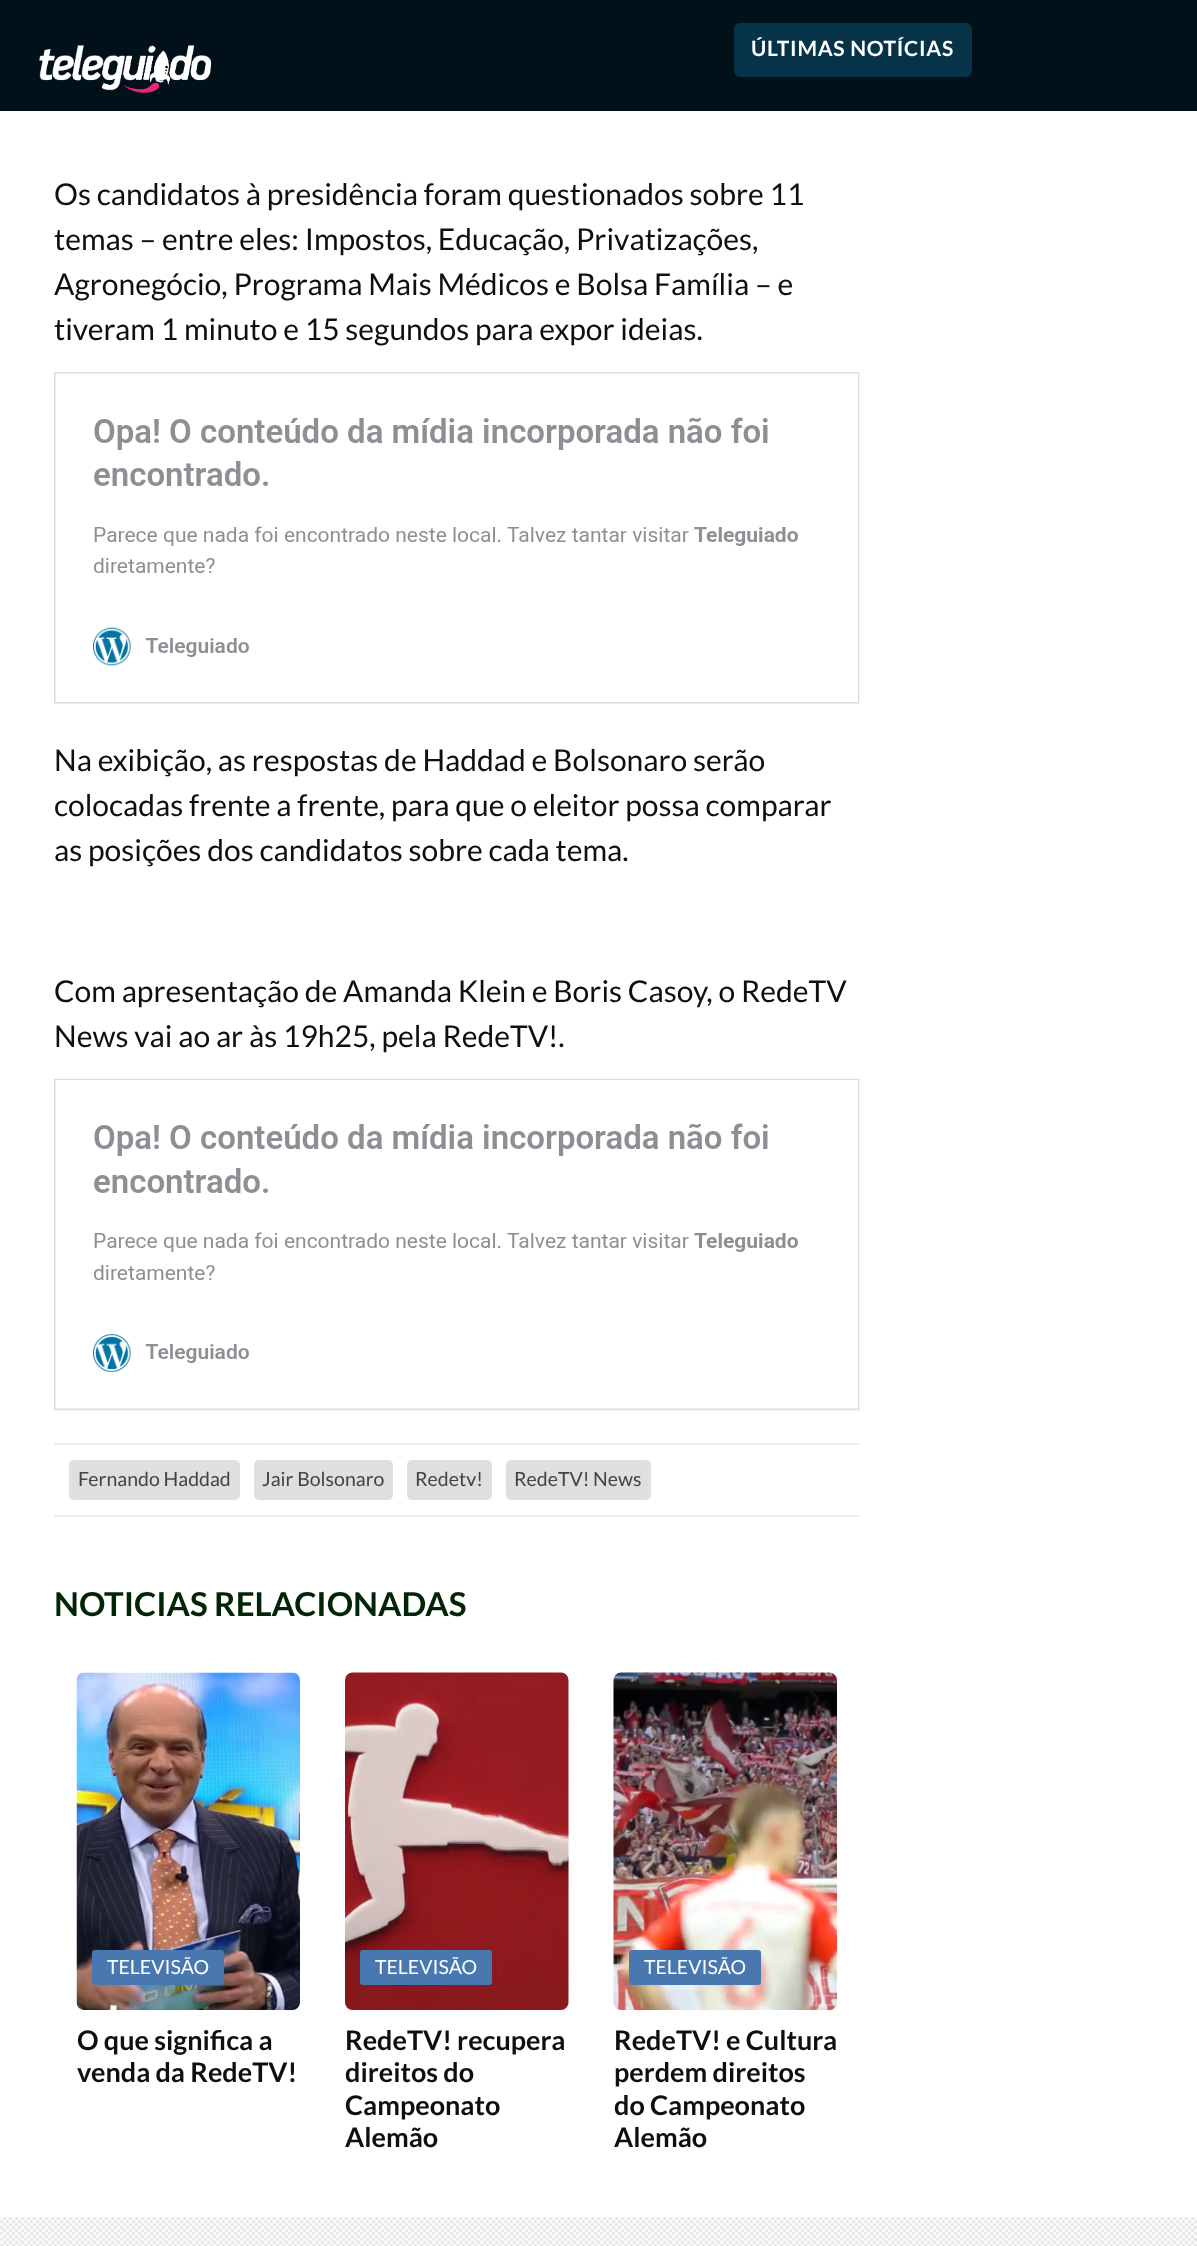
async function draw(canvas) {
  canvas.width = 1197
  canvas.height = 2246
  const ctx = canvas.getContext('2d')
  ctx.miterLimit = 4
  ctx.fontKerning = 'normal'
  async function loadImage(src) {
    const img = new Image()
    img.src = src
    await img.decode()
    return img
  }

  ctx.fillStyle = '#fff'
  ctx.fillRect(0, 0, 1197, 2246)
  ctx.fillStyle = '#00111a'
  ctx.fillRect(0, 0, 1197, 111)
  ctx.drawImage(await loadImage('image0.png'), 39, 45, 173, 48)
  ctx.fillStyle = '#073349'
  ctx.beginPath()
  ctx.roundRect(734, 23, 238, 54, 6)
  ctx.fill()
  ctx.letterSpacing = '0.75px'
  ctx.font = 'bold 21px Lato'
  ctx.fillStyle = '#fff'
  ctx.fillText('ÚLTIMAS NOTÍCIAS', 751, 56)
  ctx.letterSpacing = '0px'
  ctx.font = '30px Lato'
  ctx.fillStyle = '#0f0f0f'
  ctx.fillText('Os candidatos à presidência foram questionados sobre 11', 54, 205)
  ctx.fillText('temas – entre eles: Impostos, Educação, Privatizações,', 54, 250)
  ctx.fillText('Agronegócio, Programa Mais Médicos e Bolsa Família – e', 54, 295)
  ctx.fillText('tiveram 1 minuto e 15 segundos para expor ideias.', 54, 340)
  ctx.drawImage(await loadImage('image1.png'), 54, 372, 806, 332)
  ctx.fillText('Na exibição, as respostas de Haddad e Bolsonaro serão', 54, 771)
  ctx.fillText('colocadas frente a frente, para que o eleitor possa comparar', 54, 816)
  ctx.fillText('as posições dos candidatos sobre cada tema.', 54, 861)
  ctx.fillText('Com apresentação de Amanda Klein e Boris Casoy, o RedeTV', 54, 1002)
  ctx.fillText('News vai ao ar às 19h25, pela RedeTV!.', 54, 1047)
  ctx.drawImage(await loadImage('image2.png'), 54, 1078, 806, 333)
  ctx.fillStyle = '#efefef'
  ctx.fillRect(54, 1443, 806, 2)
  ctx.fillRect(54, 1515, 806, 2)
  ctx.fillStyle = '#dfdfdf'
  ctx.beginPath()
  ctx.roundRect(69, 1460, 171, 40, 5)
  ctx.fill()
  ctx.font = '19.5px Lato'
  ctx.fillStyle = '#434343'
  ctx.fillText('Fernando Haddad', 78, 1486)
  ctx.fillStyle = '#dfdfdf'
  ctx.beginPath()
  ctx.roundRect(254, 1460, 139, 40, 5)
  ctx.fill()
  ctx.fillStyle = '#434343'
  ctx.fillText('Jair Bolsonaro', 262, 1486)
  ctx.fillStyle = '#dfdfdf'
  ctx.beginPath()
  ctx.roundRect(407, 1460, 85, 40, 5)
  ctx.fill()
  ctx.fillStyle = '#434343'
  ctx.fillText('Redetv!', 415, 1486)
  ctx.fillStyle = '#dfdfdf'
  ctx.beginPath()
  ctx.roundRect(506, 1460, 145, 40, 5)
  ctx.fill()
  ctx.fillStyle = '#434343'
  ctx.fillText('RedeTV! News', 514, 1486)
  ctx.font = 'bold 33px Lato'
  ctx.fillStyle = '#002406'
  ctx.fillText('NOTICIAS RELACIONADAS', 54, 1616)
  ctx.drawImage(await loadImage('image3.png'), 76, 1672, 224, 338)
  ctx.fillStyle = '#4977af'
  ctx.beginPath()
  ctx.roundRect(92, 1950, 132, 35, 3)
  ctx.fill()
  ctx.font = '19.5px Lato'
  ctx.fillStyle = '#fff'
  ctx.fillText('TELEVISÃO', 107, 1974)
  ctx.font = 'bold 27px Lato'
  ctx.fillStyle = '#0f0f0f'
  ctx.fillText('O que significa a', 77, 2050)
  ctx.fillText('venda da RedeTV!', 77, 2082)
  ctx.drawImage(await loadImage('image4.png'), 345, 1672, 224, 338)
  ctx.fillStyle = '#4977af'
  ctx.beginPath()
  ctx.roundRect(360, 1950, 132, 35, 3)
  ctx.fill()
  ctx.font = '19.5px Lato'
  ctx.fillStyle = '#fff'
  ctx.fillText('TELEVISÃO', 375, 1974)
  ctx.font = 'bold 27px Lato'
  ctx.fillStyle = '#0f0f0f'
  ctx.fillText('RedeTV! recupera', 345, 2050)
  ctx.fillText('direitos do', 345, 2082)
  ctx.fillText('Campeonato', 345, 2115)
  ctx.fillText('Alemão', 345, 2147)
  ctx.drawImage(await loadImage('image5.png'), 613, 1672, 224, 338)
  ctx.fillStyle = '#4977af'
  ctx.beginPath()
  ctx.roundRect(629, 1950, 132, 35, 3)
  ctx.fill()
  ctx.font = '19.5px Lato'
  ctx.fillStyle = '#fff'
  ctx.fillText('TELEVISÃO', 644, 1974)
  ctx.font = 'bold 27px Lato'
  ctx.fillStyle = '#0f0f0f'
  ctx.fillText('RedeTV! e Cultura', 614, 2050)
  ctx.fillText('perdem direitos', 614, 2082)
  ctx.fillText('do Campeonato', 614, 2115)
  ctx.fillText('Alemão', 614, 2147)
  ctx.drawImage(await loadImage('image6.png'), 0, 2217, 1197, 29)
}

draw(document.querySelector('canvas'))
